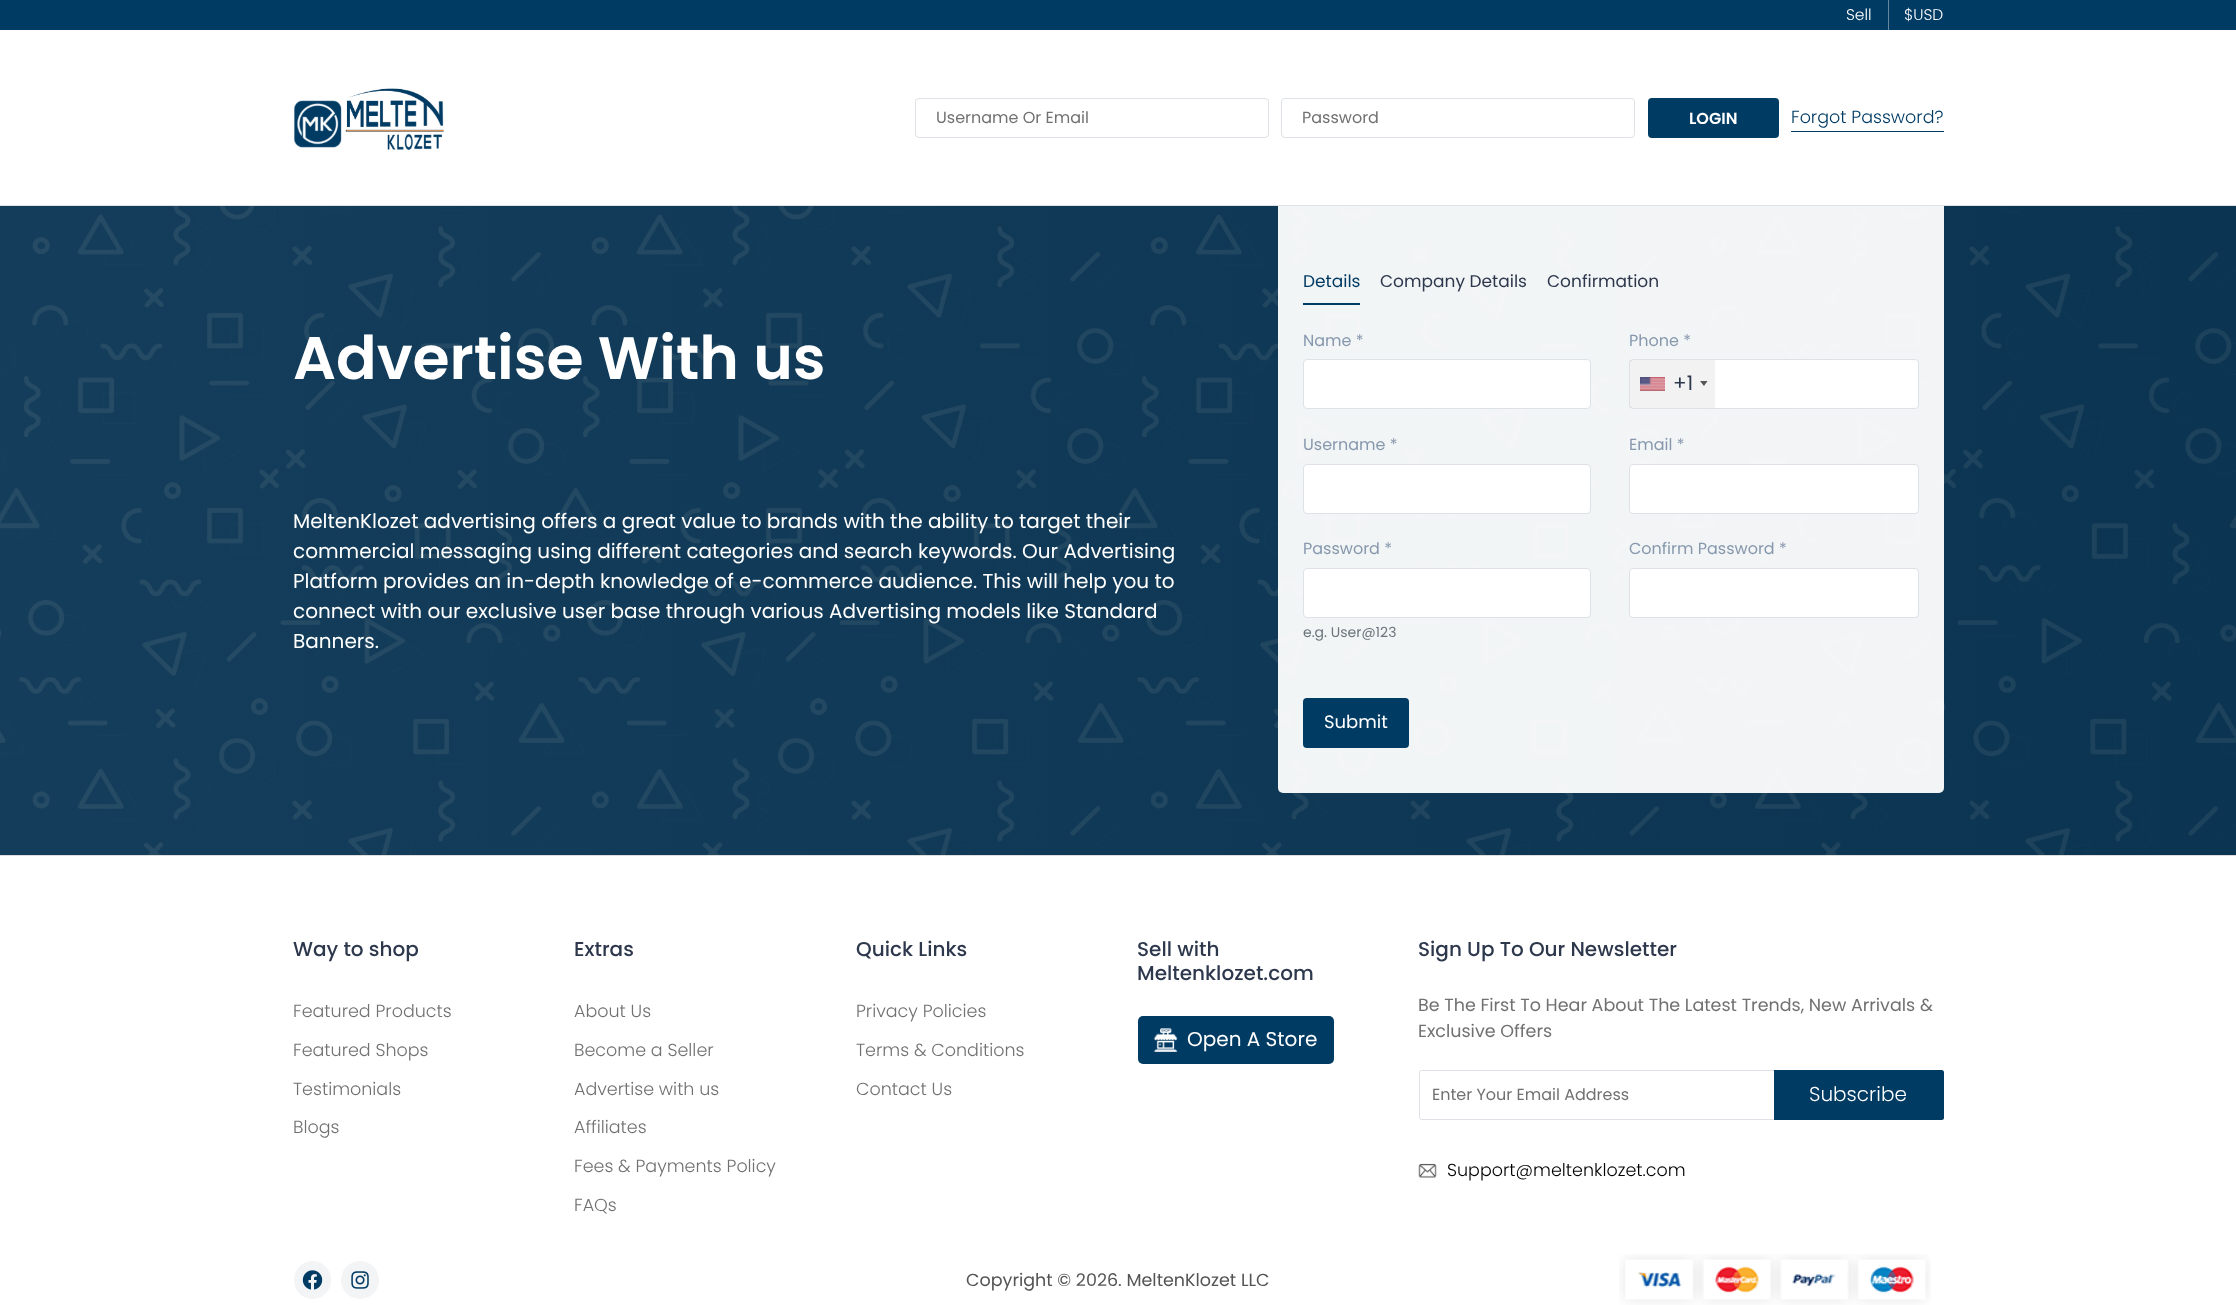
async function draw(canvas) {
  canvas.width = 2236
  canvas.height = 1305
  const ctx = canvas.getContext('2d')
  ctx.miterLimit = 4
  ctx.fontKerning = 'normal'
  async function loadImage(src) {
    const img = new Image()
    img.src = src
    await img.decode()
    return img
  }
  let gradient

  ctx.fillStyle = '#fff'
  ctx.fillRect(0, 0, 2236, 1305)
  ctx.fillStyle = '#003b64'
  ctx.fillRect(0, 206, 2236, 649)
  ctx.drawImage(await loadImage('image1.png'), 0, 206, 2236, 649)
  gradient = ctx.createLinearGradient(0, 474, 2236, 474)
  gradient.addColorStop(0, '#4143454d')
  gradient.addColorStop(1, '#2325264d')
  ctx.fillStyle = gradient
  ctx.fillRect(0, 206, 2236, 649)
  ctx.fillStyle = '#fffffff2'
  ctx.beginPath()
  ctx.roundRect(1278, 156, 666, 637, 5)
  ctx.fill()
  ctx.fillStyle = '#dee2e6'
  ctx.fillRect(0, 205, 2236, 1)
  ctx.fillStyle = '#003b64'
  ctx.fillRect(0, 0, 2236, 30)
  ctx.font = '300 15.5px Poppins'
  ctx.fillStyle = '#fff'
  ctx.fillText('Sell', 1846, 20)
  ctx.fillStyle = '#6689a2'
  ctx.fillRect(1888, 0, 1, 30)
  ctx.fillStyle = '#fff'
  ctx.fillText('$USD', 1904, 20)
  ctx.drawImage(await loadImage('image0.png'), 293, 88, 151, 62)
  ctx.beginPath()
  ctx.roundRect(915.5, 98.5, 353, 39, 3.5)
  ctx.strokeStyle = '#dee2e6'
  ctx.stroke()
  ctx.font = '16px Poppins'
  ctx.fillStyle = '#717171'
  ctx.fillText('Username Or Email', 936, 123)
  ctx.beginPath()
  ctx.roundRect(1281.5, 98.5, 353, 39, 3.5)
  ctx.stroke()
  ctx.fillText('Password', 1302, 123)
  ctx.fillStyle = '#003b64'
  ctx.beginPath()
  ctx.roundRect(1648, 98, 131, 40, 4)
  ctx.fill()
  ctx.font = '600 16px Poppins'
  ctx.fillStyle = '#fff'
  ctx.fillText('LOGIN', 1689, 124)
  ctx.font = '300 17.5px Poppins'
  ctx.fillStyle = '#003b64'
  ctx.fillText('Forgot Password?', 1791, 123)
  ctx.fillRect(1791, 131, 153, 1)
  ctx.font = '600 60px Poppins'
  ctx.fillStyle = '#fff'
  ctx.fillText('Advertise With us', 293, 379)
  ctx.font = '20px Poppins'
  ctx.fillText('MeltenKlozet advertising offers a great value to brands with the ability to target their', 293, 528)
  ctx.fillText('commercial messaging using different categories and search keywords. Our Advertising', 293, 558)
  ctx.fillText('Platform provides an in-depth knowledge of e-commerce audience. This will help you to', 293, 588)
  ctx.fillText('connect with our exclusive user base through various Advertising models like Standard', 293, 618)
  ctx.fillText('Banners.', 293, 648)
  ctx.font = '17px Poppins'
  ctx.fillStyle = '#003b64'
  ctx.fillText('Details', 1303, 287)
  ctx.fillRect(1303, 303, 57, 2)
  ctx.fillStyle = '#2e384d'
  ctx.fillText('Company Details', 1380, 287)
  ctx.fillText('Confirmation', 1547, 287)
  ctx.font = '16px Poppins'
  ctx.fillStyle = '#8798ad'
  ctx.fillText('Name *', 1303, 346)
  ctx.fillStyle = '#fff'
  ctx.beginPath()
  ctx.roundRect(1303.5, 359.5, 287, 49, 3.5)
  ctx.fill()
  ctx.stroke()
  ctx.fillStyle = '#8798ad'
  ctx.fillText('Phone *', 1629, 346)
  ctx.fillStyle = '#fff'
  ctx.beginPath()
  ctx.roundRect(1629.5, 359.5, 289, 49, 3.5)
  ctx.fill()
  ctx.stroke()
  ctx.fillStyle = '#0000000d'
  ctx.fillRect(1630, 360, 85, 48)
  ctx.fillStyle = '#888'
  ctx.filter = 'blur(0.5px)'
  ctx.beginPath()
  ctx.rect(1640, 378, 25, 13)
  ctx.fill()
  ctx.filter = 'none'
  ctx.drawImage(await loadImage('image2.png'), 1640, 377, 25, 14)
  ctx.font = '20px Poppins'
  ctx.fillStyle = '#2e384d'
  ctx.fillText('+1', 1673, 390)
  ctx.fillStyle = '#555'
  ctx.beginPath()
  ctx.moveTo(1700, 381)
  ctx.lineTo(1707.5, 381)
  ctx.lineTo(1704, 386)
  ctx.closePath()
  ctx.fill()
  ctx.font = '16px Poppins'
  ctx.fillStyle = '#8798ad'
  ctx.fillText('Username *', 1303, 450)
  ctx.fillStyle = '#fff'
  ctx.beginPath()
  ctx.roundRect(1303.5, 464.5, 287, 49, 3.5)
  ctx.fill()
  ctx.stroke()
  ctx.fillStyle = '#8798ad'
  ctx.fillText('Email *', 1629, 450)
  ctx.fillStyle = '#fff'
  ctx.beginPath()
  ctx.roundRect(1629.5, 464.5, 289, 49, 3.5)
  ctx.fill()
  ctx.stroke()
  ctx.fillStyle = '#8798ad'
  ctx.fillText('Password *', 1303, 554)
  ctx.fillStyle = '#fff'
  ctx.beginPath()
  ctx.roundRect(1303.5, 568.5, 287, 49, 3.5)
  ctx.fill()
  ctx.stroke()
  ctx.font = '14px Poppins'
  ctx.fillStyle = '#6c757d'
  ctx.fillText('e.g. User@123', 1303, 637)
  ctx.font = '16px Poppins'
  ctx.fillStyle = '#8798ad'
  ctx.fillText('Confirm Password *', 1629, 554)
  ctx.fillStyle = '#fff'
  ctx.beginPath()
  ctx.roundRect(1629.5, 568.5, 289, 49, 3.5)
  ctx.fill()
  ctx.stroke()
  ctx.fillStyle = '#003b64'
  ctx.beginPath()
  ctx.roundRect(1303, 698, 106, 50, 4)
  ctx.fill()
  ctx.font = '18px Poppins'
  ctx.fillStyle = '#fff'
  ctx.fillText('Submit', 1324, 728)
  ctx.fillStyle = '#ddd'
  ctx.fillRect(0, 855, 2236, 1)
  ctx.font = '500 20px Poppins'
  ctx.fillStyle = '#2e384d'
  ctx.fillText('Way to shop', 293, 956)
  ctx.font = '300 17.5px Poppins'
  ctx.fillStyle = '#717171'
  ctx.fillText('Featured Products', 293, 1017)
  ctx.fillText('Featured Shops', 293, 1056)
  ctx.fillText('Testimonials', 293, 1095)
  ctx.fillText('Blogs', 293, 1133)
  ctx.font = '500 20px Poppins'
  ctx.fillStyle = '#2e384d'
  ctx.fillText('Extras', 574, 956)
  ctx.font = '300 17.5px Poppins'
  ctx.fillStyle = '#717171'
  ctx.fillText('About Us', 574, 1017)
  ctx.fillText('Become a Seller', 574, 1056)
  ctx.fillText('Advertise with us', 574, 1095)
  ctx.fillText('Affiliates', 574, 1133)
  ctx.fillText('Fees & Payments Policy', 574, 1172)
  ctx.fillText('FAQs', 574, 1211)
  ctx.font = '500 20px Poppins'
  ctx.fillStyle = '#2e384d'
  ctx.fillText('Quick Links', 856, 956)
  ctx.font = '300 17.5px Poppins'
  ctx.fillStyle = '#717171'
  ctx.fillText('Privacy Policies', 856, 1017)
  ctx.fillText('Terms & Conditions', 856, 1056)
  ctx.fillText('Contact Us', 856, 1095)
  ctx.font = '500 20px Poppins'
  ctx.fillStyle = '#2e384d'
  ctx.fillText('Sell with', 1137, 956)
  ctx.fillText('Meltenklozet.com', 1137, 980)
  ctx.fillStyle = '#003b64'
  ctx.beginPath()
  ctx.roundRect(1138, 1016, 196, 48, 5)
  ctx.fill()
  ctx.drawImage(await loadImage('image3.png'), 1153, 1028, 25, 24)
  ctx.font = '20px Poppins'
  ctx.fillStyle = '#fff'
  ctx.fillText('Open A Store', 1187, 1046)
  ctx.font = '500 20px Poppins'
  ctx.fillStyle = '#2e384d'
  ctx.fillText('Sign Up To Our Newsletter', 1418, 956)
  ctx.font = '17.5px Poppins'
  ctx.fillStyle = '#717171'
  ctx.fillText('Be The First To Hear About The Latest Trends, New Arrivals &', 1418, 1011)
  ctx.fillText('Exclusive Offers', 1418, 1037)
  ctx.beginPath()
  ctx.roundRect(1419.5, 1070.5, 358, 49, [2, 0, 2, 2])
  ctx.stroke()
  ctx.font = '16px Poppins'
  ctx.fillText('Enter Your Email Address', 1432, 1100)
  ctx.fillStyle = '#003b64'
  ctx.beginPath()
  ctx.roundRect(1774, 1070, 170, 50, [0, 2.5, 2.5, 0])
  ctx.fill()
  ctx.font = '300 20px Poppins'
  ctx.fillStyle = '#fff'
  ctx.fillText('Subscribe', 1809, 1101)
  ctx.drawImage(await loadImage('image4.png'), 1418, 1163, 19, 15)
  ctx.font = '300 17.5px Poppins'
  ctx.fillStyle = '#000'
  ctx.fillText('Support@meltenklozet.com', 1447, 1176)
  ctx.fillStyle = '#f3f4f5'
  ctx.beginPath()
  ctx.roundRect(294, 1261, 37, 38, 18.5)
  ctx.fill()
  ctx.drawImage(await loadImage('image5.png'), 302, 1270, 21, 20)
  ctx.beginPath()
  ctx.arc(360, 1280, 19, 0, 2 * Math.PI)
  ctx.fill()
  ctx.drawImage(await loadImage('image6.png'), 351, 1271, 18, 18)
  ctx.font = '17.5px Poppins'
  ctx.fillStyle = '#545454'
  ctx.fillText('Copyright © 2026. MeltenKlozet LLC', 966, 1286)
  ctx.drawImage(await loadImage('image7.png'), 1619, 1254, 312, 51)
}

draw(document.querySelector('canvas'))
